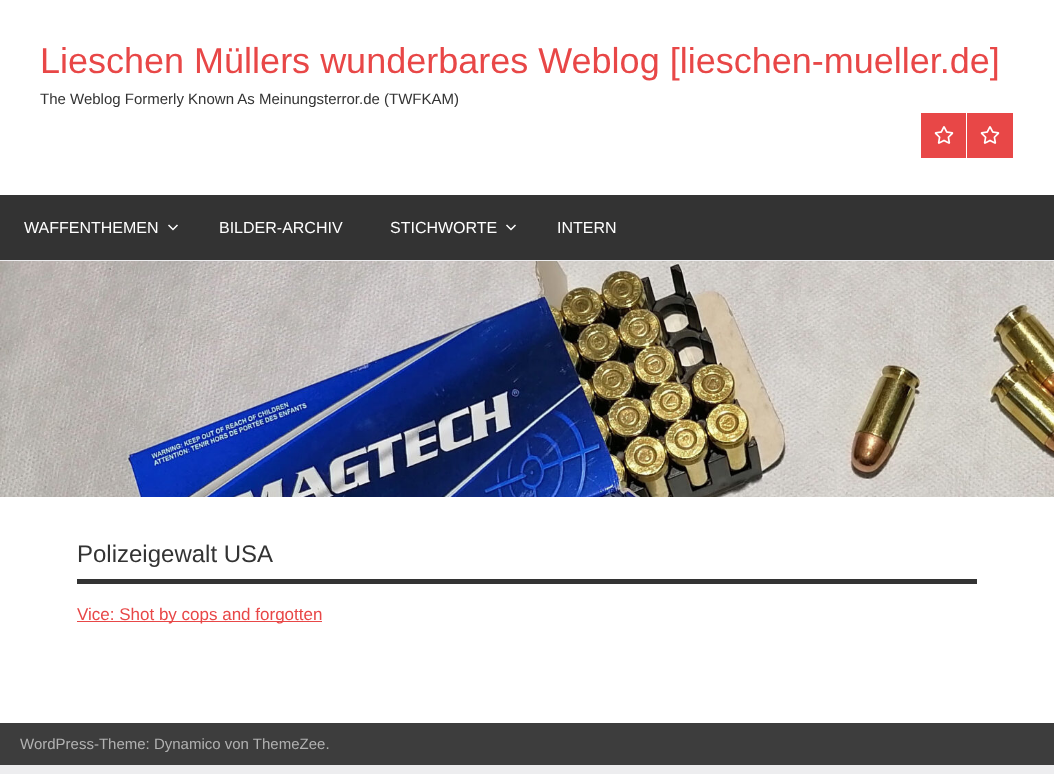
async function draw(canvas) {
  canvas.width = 1054
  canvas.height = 774
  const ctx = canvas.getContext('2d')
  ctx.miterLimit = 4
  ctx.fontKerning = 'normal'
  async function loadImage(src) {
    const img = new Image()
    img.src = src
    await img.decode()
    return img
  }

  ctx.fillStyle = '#ededef'
  ctx.fillRect(0, 0, 1054, 774)
  ctx.fillStyle = '#fff'
  ctx.fillRect(0, 0, 1054, 195)
  ctx.font = '36px Liberation Sans'
  ctx.fillStyle = '#e84747'
  ctx.fillText('Lieschen Müllers wunderbares Weblog [lieschen-mueller.de]', 40, 73)
  ctx.font = '15px Liberation Sans'
  ctx.fillStyle = '#333'
  ctx.fillText('The Weblog Formerly Known As Meinungsterror.de (TWFKAM)', 40, 104)
  ctx.fillStyle = '#e84747'
  ctx.fillRect(921, 113, 45, 45)
  ctx.drawImage(await loadImage('image0.png'), 934, 126, 20, 18)
  ctx.fillRect(967, 113, 46, 45)
  ctx.drawImage(await loadImage('image0.png'), 980, 126, 20, 18)
  ctx.fillStyle = '#333'
  ctx.fillRect(0, 195, 1054, 65)
  ctx.font = '16px Liberation Sans'
  ctx.fillStyle = '#fff'
  ctx.fillText('WAFFENTHEMEN', 24, 233)
  ctx.drawImage(await loadImage('image1.png'), 168, 224, 10, 7)
  ctx.fillText('BILDER-ARCHIV', 219, 233)
  ctx.fillText('STICHWORTE', 390, 233)
  ctx.drawImage(await loadImage('image2.png'), 506, 224, 10, 7)
  ctx.fillText('INTERN', 557, 233)
  ctx.drawImage(await loadImage('image3.png'), 0, 261, 1054, 236)
  ctx.fillRect(0, 497, 1054, 226)
  ctx.fillStyle = '#333'
  ctx.fillRect(77, 579, 900, 5)
  ctx.font = '24px Liberation Sans'
  ctx.fillText('Polizeigewalt USA', 77, 562)
  ctx.fillStyle = '#e84747'
  ctx.fillRect(77, 621, 245, 1)
  ctx.font = '17px Liberation Sans'
  ctx.fillText('Vice: Shot by cops and forgotten', 77, 620)
  ctx.fillStyle = '#3d3d3d'
  ctx.fillRect(0, 723, 1054, 42)
  ctx.font = '15px Liberation Sans'
  ctx.fillStyle = '#b1b1b1'
  ctx.fillText('WordPress-Theme: Dynamico von ThemeZee.', 20, 749)
}

draw(document.querySelector('canvas'))
